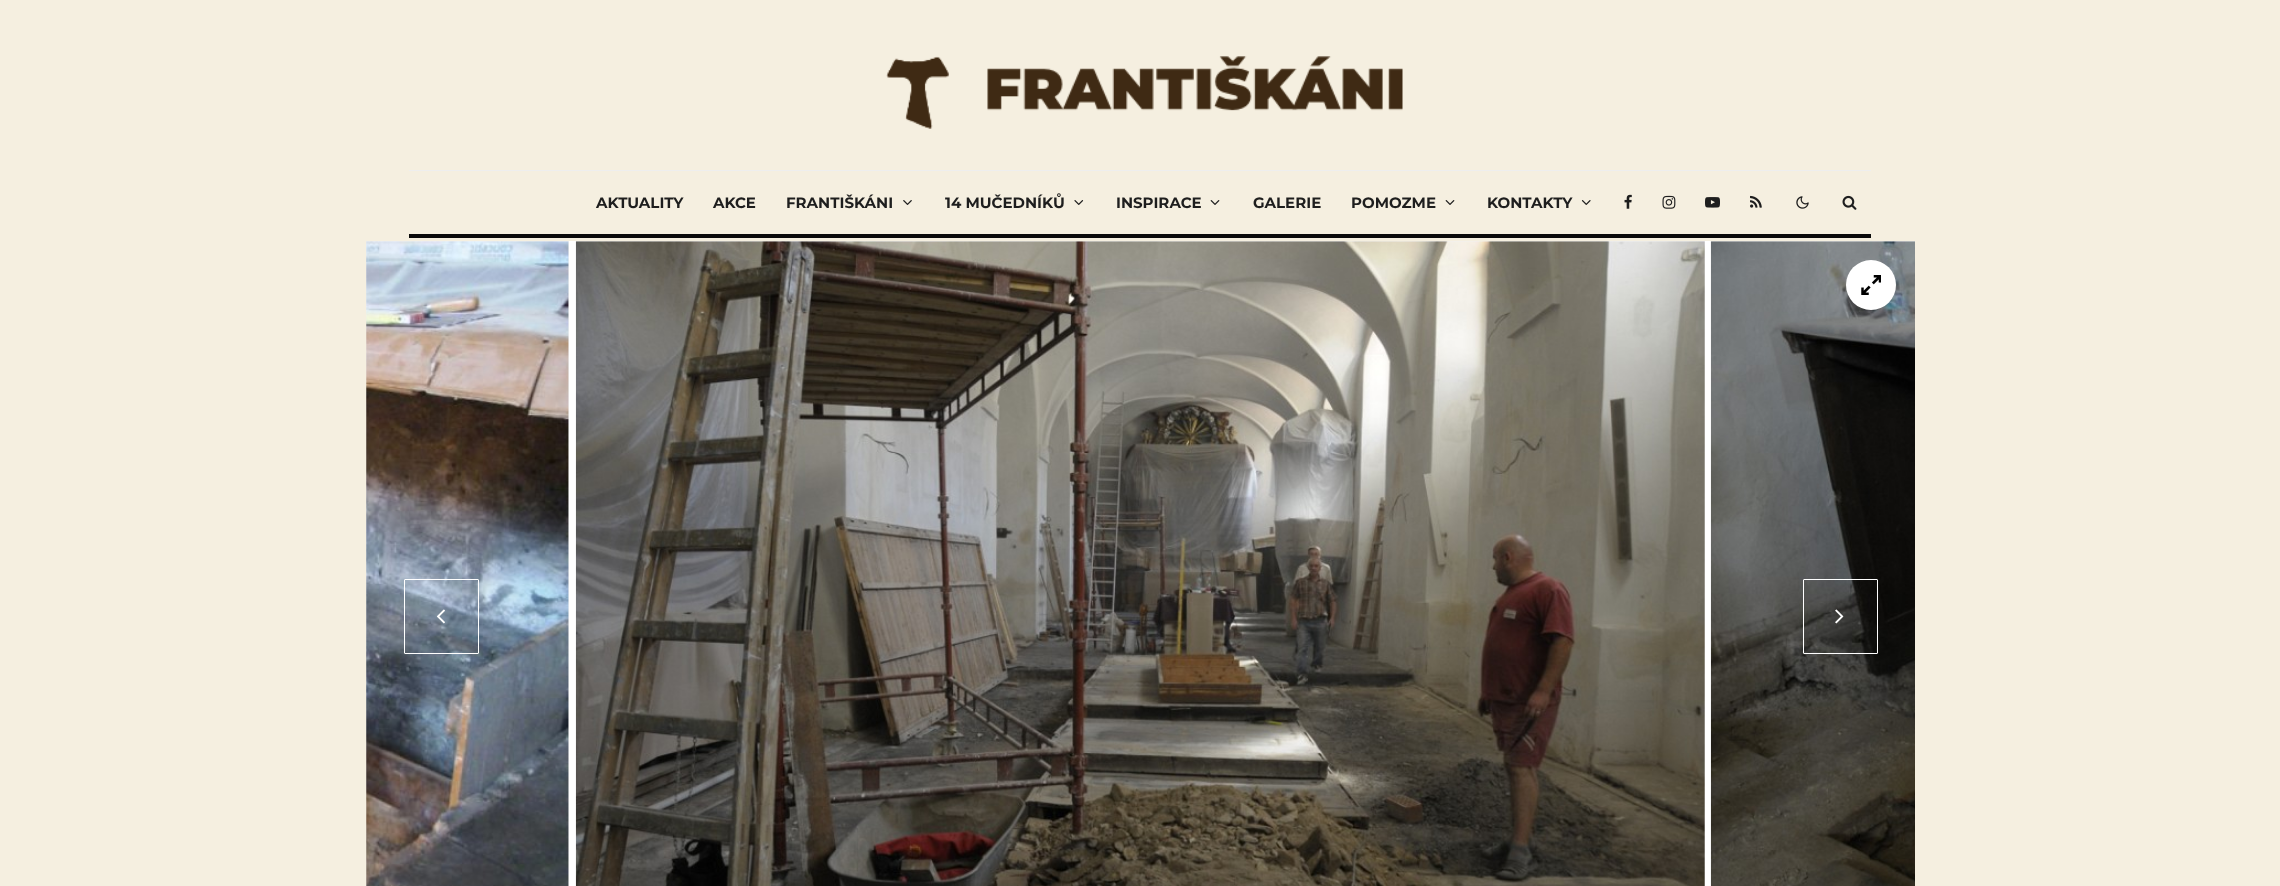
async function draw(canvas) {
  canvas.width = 2280
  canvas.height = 886
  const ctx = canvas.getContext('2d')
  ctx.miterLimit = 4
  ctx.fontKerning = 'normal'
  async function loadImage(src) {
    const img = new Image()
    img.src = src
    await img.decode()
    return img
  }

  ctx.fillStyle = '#f5efe0'
  ctx.fillRect(0, 0, 2280, 886)
  ctx.drawImage(await loadImage('image0.png'), 886, 56, 517, 73)
  ctx.fillStyle = '#eee'
  ctx.fillRect(409, 170, 1462, 1)
  ctx.fillStyle = '#0a0a0a'
  ctx.fillRect(409, 234, 1462, 4)
  ctx.font = 'bold 15px Montserrat'
  ctx.fillStyle = '#1e1e1e'
  ctx.fillText('AKTUALITY', 596, 208)
  ctx.fillText('AKCE', 713, 208)
  ctx.fillText('FRANTIŠKÁNI', 786, 208)
  ctx.drawImage(await loadImage('image1.png'), 903, 200, 9, 5)
  ctx.fillText('14 MUČEDNÍKŮ', 945, 208)
  ctx.drawImage(await loadImage('image2.png'), 1074, 200, 10, 5)
  ctx.fillText('INSPIRACE', 1116, 208)
  ctx.drawImage(await loadImage('image3.png'), 1210, 200, 10, 5)
  ctx.fillText('GALERIE', 1253, 208)
  ctx.fillText('POMOZME', 1351, 208)
  ctx.drawImage(await loadImage('image3.png'), 1445, 200, 10, 5)
  ctx.fillText('KONTAKTY', 1487, 208)
  ctx.drawImage(await loadImage('image4.png'), 1581, 200, 10, 5)
  ctx.drawImage(await loadImage('image5.png'), 1624, 194, 8, 15)
  ctx.drawImage(await loadImage('image6.png'), 1662, 195, 14, 14)
  ctx.drawImage(await loadImage('image7.png'), 1705, 197, 15, 11)
  ctx.drawImage(await loadImage('image8.png'), 1750, 195, 12, 13)
  ctx.drawImage(await loadImage('image9.png'), 1796, 196, 13, 13)
  ctx.drawImage(await loadImage('image10.png'), 1842, 195, 15, 15)
  ctx.fillStyle = '#fff'
  ctx.fillRect(569, 241, 1142, 645)
  ctx.fillStyle = '#f2f2f2'
  ctx.fillRect(366, 241, 203, 645)
  ctx.drawImage(await loadImage('image11.png'), 366, 241, 203, 645)
  ctx.fillRect(576, 241, 1129, 645)
  ctx.drawImage(await loadImage('image12.png'), 575, 241, 1130, 645)
  ctx.fillRect(1711, 241, 204, 1)
  ctx.drawImage(await loadImage('image13.png'), 1710, 241, 205, 645)
  ctx.fillStyle = '#fff'
  ctx.beginPath()
  ctx.arc(1871, 285, 25, 0, 2 * Math.PI)
  ctx.fill()
  ctx.drawImage(await loadImage('image14.png'), 1861, 275, 20, 20)
  ctx.beginPath()
  ctx.roundRect(404.5, 579.5, 74, 74, 0.5)
  ctx.strokeStyle = '#fff'
  ctx.stroke()
  ctx.drawImage(await loadImage('image15.png'), 436, 609, 9, 15)
  ctx.beginPath()
  ctx.roundRect(1803.5, 579.5, 74, 74, 0.5)
  ctx.stroke()
  ctx.drawImage(await loadImage('image16.png'), 1835, 609, 9, 15)
}

draw(document.querySelector('canvas'))
